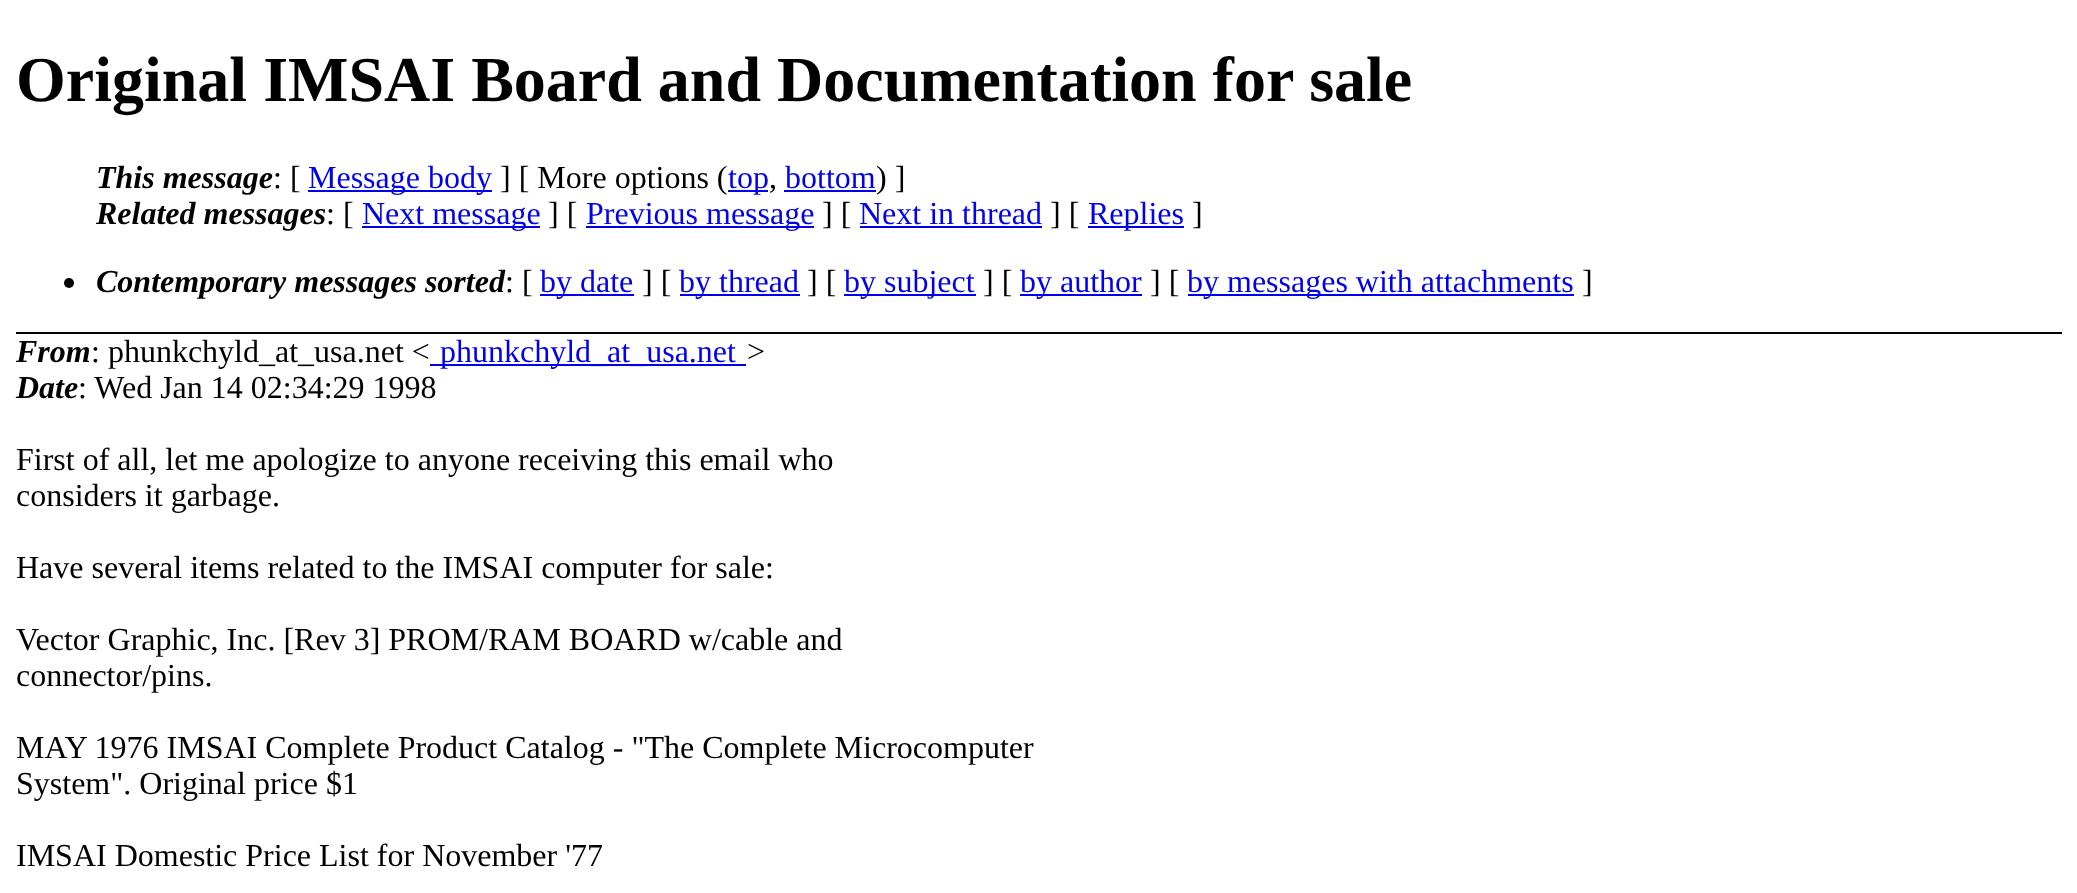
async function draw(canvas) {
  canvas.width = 2077
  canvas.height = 893
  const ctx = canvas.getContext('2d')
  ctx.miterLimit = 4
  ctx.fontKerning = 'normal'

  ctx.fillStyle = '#fff'
  ctx.fillRect(0, 0, 2077, 893)
  ctx.fillStyle = '#000'
  ctx.fillRect(16, 332, 2046, 2)
  ctx.font = 'bold 64px Liberation Serif'
  ctx.fillText('Original IMSAI Board and Documentation for sale', 16, 101)
  ctx.font = 'italic bold 32px Liberation Serif'
  ctx.fillText('This message', 96, 188)
  ctx.font = '32px Liberation Serif'
  ctx.fillText(': [', 273, 188)
  ctx.fillStyle = '#00e'
  ctx.fillRect(308, 190, 184, 2)
  ctx.fillText('Message body', 308, 188)
  ctx.fillStyle = '#000'
  ctx.fillText('] [ More options (', 500, 188)
  ctx.fillStyle = '#00e'
  ctx.fillRect(728, 190, 40, 2)
  ctx.fillText('top', 728, 188)
  ctx.fillStyle = '#000'
  ctx.fillText(',', 769, 188)
  ctx.fillStyle = '#00e'
  ctx.fillText('bottom', 785, 188)
  ctx.fillRect(784, 190, 92, 2)
  ctx.fillStyle = '#000'
  ctx.fillText(') ]', 876, 188)
  ctx.font = 'italic bold 32px Liberation Serif'
  ctx.fillText('Related messages', 96, 224)
  ctx.font = '32px Liberation Serif'
  ctx.fillText(': [', 326, 224)
  ctx.fillStyle = '#00e'
  ctx.fillRect(362, 226, 178, 2)
  ctx.fillText('Next message', 362, 224)
  ctx.fillStyle = '#000'
  ctx.fillText('] [', 548, 224)
  ctx.fillStyle = '#00e'
  ctx.fillRect(586, 226, 228, 2)
  ctx.fillText('Previous message', 586, 224)
  ctx.fillStyle = '#000'
  ctx.fillText('] [', 822, 224)
  ctx.fillStyle = '#00e'
  ctx.fillText('Next in thread', 859, 224)
  ctx.fillRect(860, 226, 182, 2)
  ctx.fillStyle = '#000'
  ctx.fillText('] [', 1050, 224)
  ctx.fillStyle = '#00e'
  ctx.fillRect(1088, 226, 96, 2)
  ctx.fillText('Replies', 1088, 224)
  ctx.fillStyle = '#000'
  ctx.fillText(']', 1192, 224)
  ctx.beginPath()
  ctx.arc(69, 283, 5, 0, 2 * Math.PI)
  ctx.fill()
  ctx.font = 'italic bold 32px Liberation Serif'
  ctx.fillText('Contemporary messages sorted', 96, 292)
  ctx.font = '32px Liberation Serif'
  ctx.fillText(': [', 505, 292)
  ctx.fillStyle = '#00e'
  ctx.fillRect(540, 294, 94, 2)
  ctx.fillText('by date', 540, 292)
  ctx.fillStyle = '#000'
  ctx.fillText('] [', 642, 292)
  ctx.fillStyle = '#00e'
  ctx.fillRect(680, 294, 120, 2)
  ctx.fillText('by thread', 679, 292)
  ctx.fillStyle = '#000'
  ctx.fillText('] [', 807, 292)
  ctx.fillStyle = '#00e'
  ctx.fillRect(844, 294, 132, 2)
  ctx.fillText('by subject', 844, 292)
  ctx.fillStyle = '#000'
  ctx.fillText('] [', 983, 292)
  ctx.fillStyle = '#00e'
  ctx.fillRect(1020, 294, 122, 2)
  ctx.fillText('by author', 1020, 292)
  ctx.fillStyle = '#000'
  ctx.fillText('] [', 1150, 292)
  ctx.fillStyle = '#00e'
  ctx.fillRect(1188, 294, 386, 2)
  ctx.fillText('by messages with attachments', 1187, 292)
  ctx.fillStyle = '#000'
  ctx.fillText(']', 1582, 292)
  ctx.font = 'italic bold 32px Liberation Serif'
  ctx.fillText('From', 16, 362)
  ctx.font = '32px Liberation Serif'
  ctx.fillText(': phunkchyld_at_usa.net <', 91, 362)
  ctx.fillStyle = '#00e'
  ctx.fillRect(430, 364, 316, 2)
  ctx.fillText('phunkchyld_at_usa.net', 440, 362)
  ctx.fillStyle = '#000'
  ctx.fillText('>', 747, 362)
  ctx.font = 'italic bold 32px Liberation Serif'
  ctx.fillText('Date', 16, 398)
  ctx.font = '32px Liberation Serif'
  ctx.fillText(': Wed Jan 14 02:34:29 1998', 78, 398)
  ctx.fillText('First of all, let me apologize to anyone receiving this email who', 16, 470)
  ctx.fillText('considers it garbage.', 16, 506)
  ctx.fillText('Have several items related to the IMSAI computer for sale:', 16, 578)
  ctx.fillText('Vector Graphic, Inc. [Rev 3] PROM/RAM BOARD w/cable and', 16, 650)
  ctx.fillText('connector/pins.', 16, 686)
  ctx.fillText('MAY 1976 IMSAI Complete Product Catalog - "The Complete Microcomputer', 16, 758)
  ctx.fillText('System". Original price $1', 16, 794)
  ctx.fillText('IMSAI Domestic Price List for November \'77', 16, 866)
}

draw(document.querySelector('canvas'))
